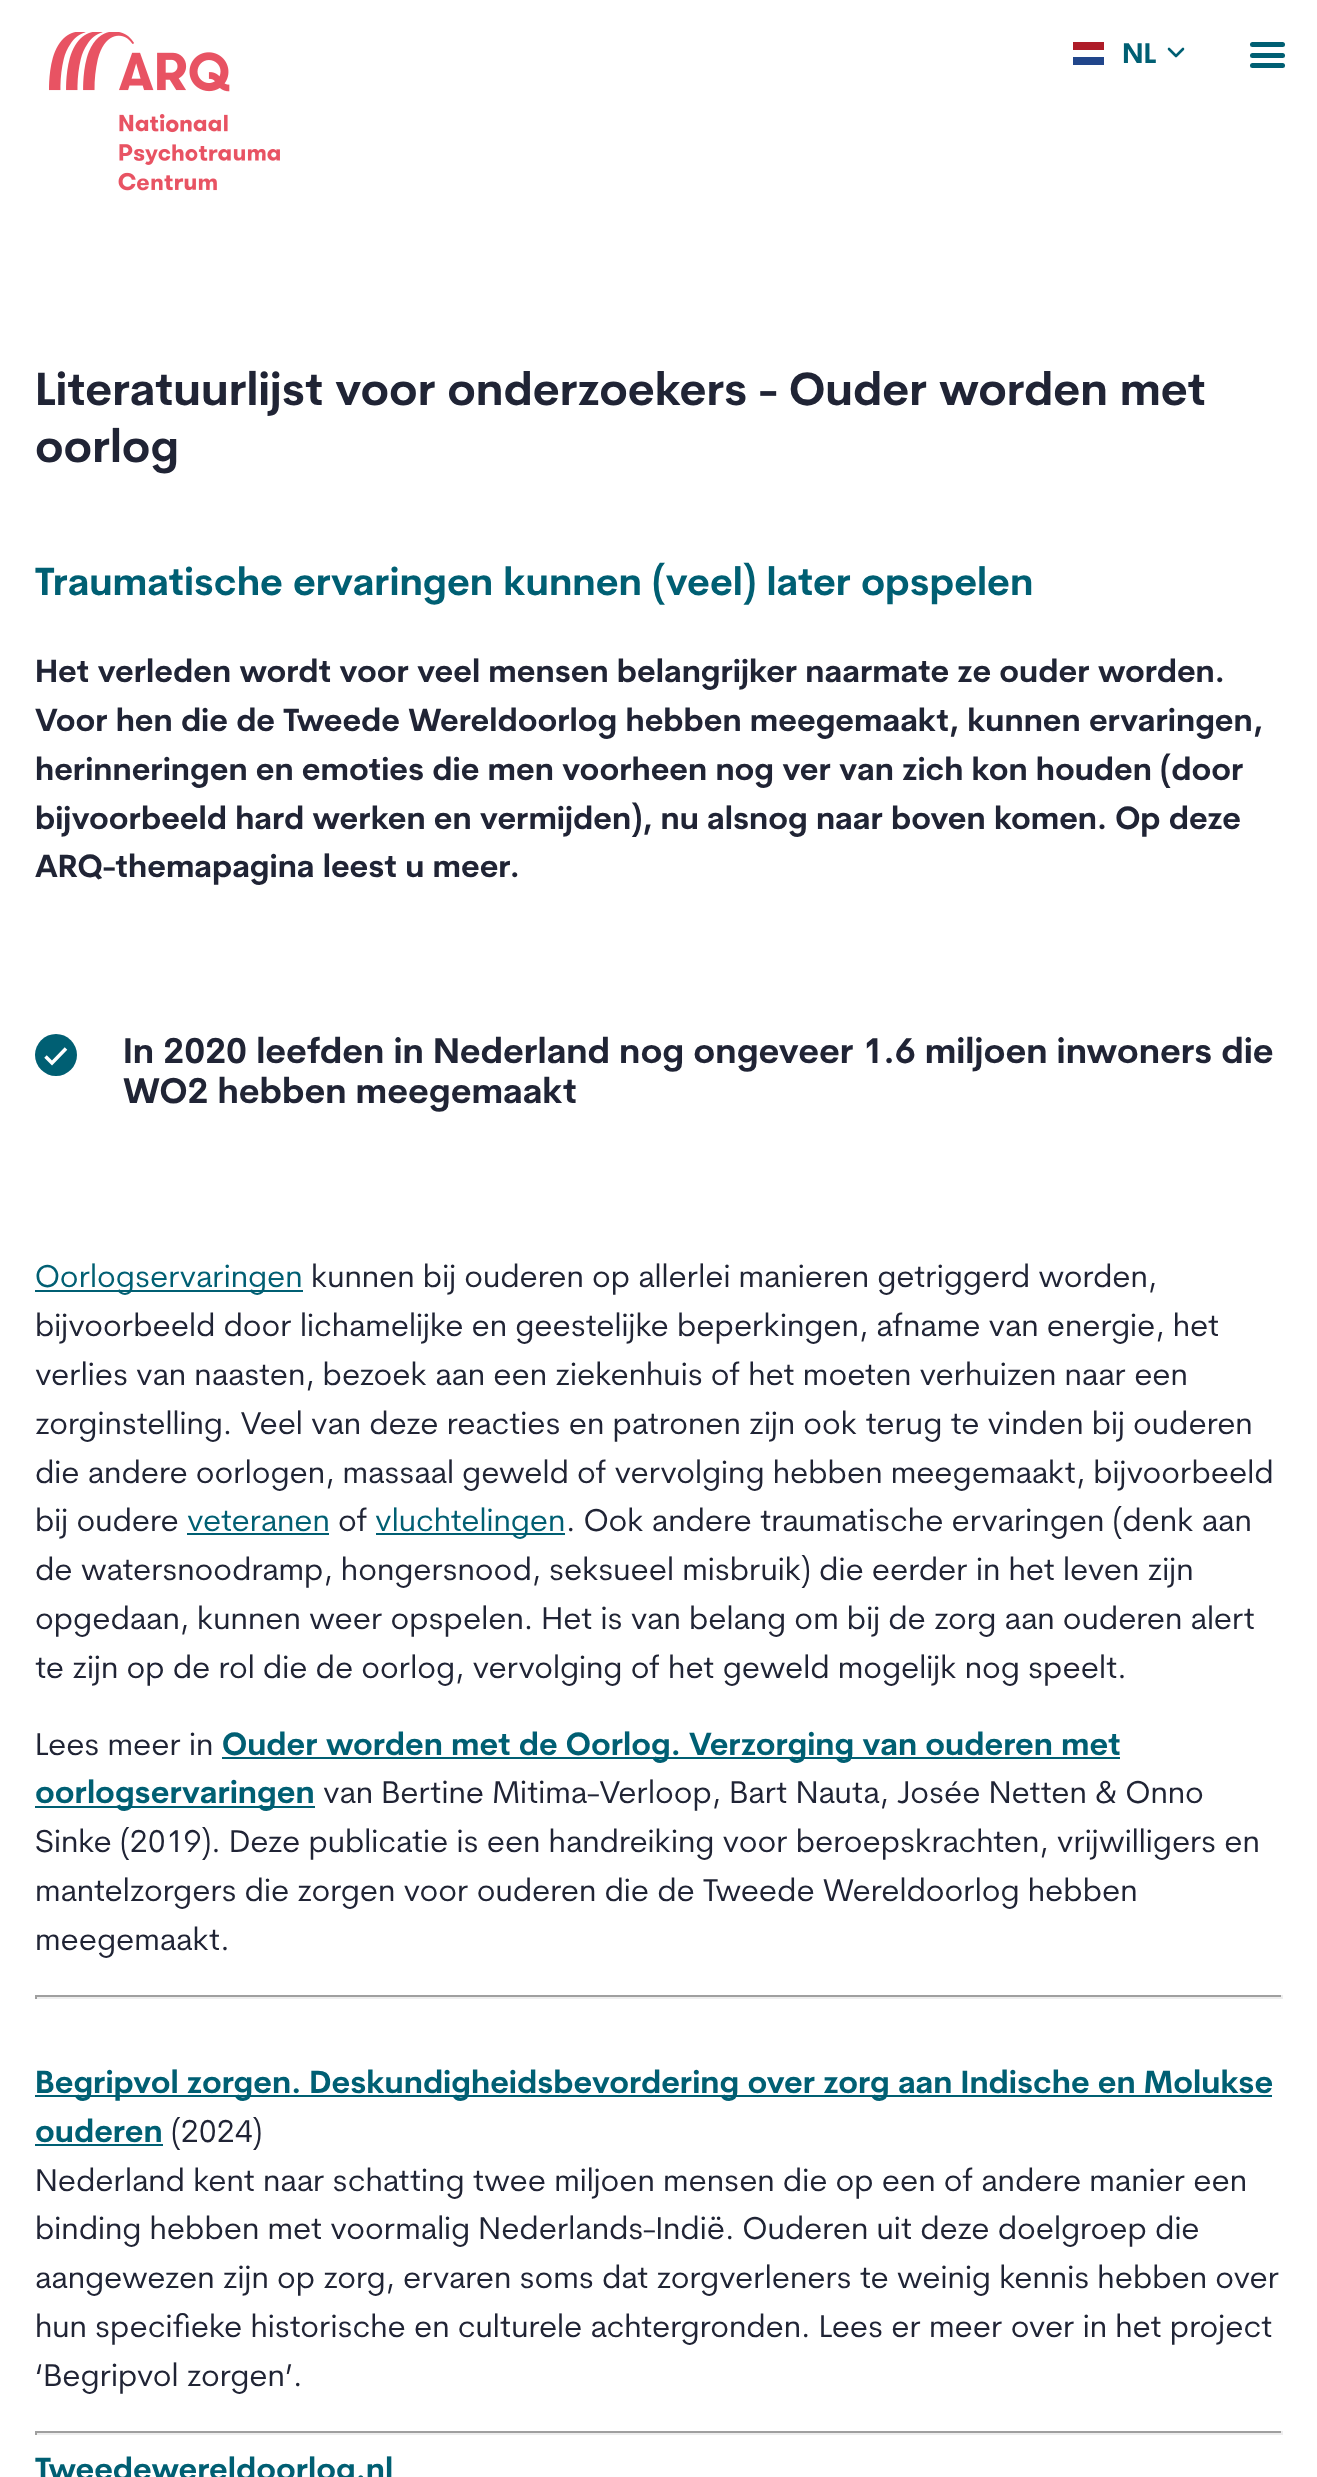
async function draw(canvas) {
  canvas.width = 1317
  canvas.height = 2477
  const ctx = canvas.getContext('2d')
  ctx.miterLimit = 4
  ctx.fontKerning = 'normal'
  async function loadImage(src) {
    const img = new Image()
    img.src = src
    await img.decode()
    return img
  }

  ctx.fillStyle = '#fff'
  ctx.fillRect(0, 0, 1317, 2477)
  ctx.drawImage(await loadImage('image0.png'), 49, 32, 231, 159)
  ctx.fillStyle = '#21468b'
  ctx.fillRect(1073, 57, 31, 8)
  ctx.fillStyle = '#ae1c28'
  ctx.fillRect(1073, 42, 31, 8)
  ctx.font = 'bold 28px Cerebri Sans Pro'
  ctx.fillStyle = '#005f73'
  ctx.fillText('NL', 1122, 63)
  ctx.beginPath()
  ctx.moveTo(1169, 49)
  ctx.lineTo(1176, 56)
  ctx.lineTo(1183, 49)
  ctx.strokeStyle = '#005f73'
  ctx.lineWidth = 2.6
  ctx.lineCap = 'round'
  ctx.lineJoin = 'round'
  ctx.stroke()
  ctx.beginPath()
  ctx.roundRect(1250, 42, 35, 5, 2.5)
  ctx.fill()
  ctx.beginPath()
  ctx.roundRect(1250, 53, 35, 5, 2.5)
  ctx.fill()
  ctx.beginPath()
  ctx.roundRect(1250, 63, 35, 5, 2.5)
  ctx.fill()
  ctx.font = 'bold 45.5px Cerebri Sans Pro'
  ctx.fillStyle = '#202435'
  ctx.fillText('Literatuurlijst voor onderzoekers - Ouder worden met', 35, 405)
  ctx.fillText('oorlog', 35, 462)
  ctx.font = 'bold 38.5px Cerebri Sans Pro'
  ctx.fillStyle = '#005f73'
  ctx.fillText('Traumatische ervaringen kunnen (veel) later opspelen', 35, 595)
  ctx.font = 'bold 31.5px Cerebri Sans Pro'
  ctx.fillStyle = '#202435'
  ctx.fillText('Het verleden wordt voor veel mensen belangrijker naarmate ze ouder worden.', 35, 682)
  ctx.fillText('Voor hen die de Tweede Wereldoorlog hebben meegemaakt, kunnen ervaringen,', 35, 731)
  ctx.fillText('herinneringen en emoties die men voorheen nog ver van zich kon houden (door', 35, 780)
  ctx.fillText('bijvoorbeeld hard werken en vermijden), nu alsnog naar boven komen. Op deze', 35, 829)
  ctx.fillText('ARQ-themapagina leest u meer.', 35, 877)
  ctx.fillStyle = '#005f73'
  ctx.beginPath()
  ctx.arc(56, 1055, 21, 0, 2 * Math.PI)
  ctx.fill()
  ctx.beginPath()
  ctx.moveTo(45.5, 1056.5)
  ctx.lineTo(52, 1063)
  ctx.lineTo(66, 1048.5)
  ctx.strokeStyle = '#fff'
  ctx.lineWidth = 3.5
  ctx.lineCap = 'butt'
  ctx.lineJoin = 'miter'
  ctx.stroke()
  ctx.font = 'bold 35px Cerebri Sans Pro'
  ctx.fillStyle = '#202435'
  ctx.fillText('In 2020 leefden in Nederland nog ongeveer 1.6 miljoen inwoners die', 123, 1063)
  ctx.fillText('WO2 hebben meegemaakt', 123, 1103)
  ctx.fillStyle = '#005f73'
  ctx.fillRect(35, 1290, 268, 2)
  ctx.font = '31.5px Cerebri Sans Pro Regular'
  ctx.fillText('Oorlogservaringen', 35, 1287)
  ctx.fillStyle = '#202435'
  ctx.fillText('kunnen bij ouderen op allerlei manieren getriggerd worden,', 311, 1287)
  ctx.fillText('bijvoorbeeld door lichamelijke en geestelijke beperkingen, afname van energie, het', 35, 1336)
  ctx.fillText('verlies van naasten, bezoek aan een ziekenhuis of het moeten verhuizen naar een', 35, 1385)
  ctx.fillText('zorginstelling. Veel van deze reacties en patronen zijn ook terug te vinden bij ouderen', 35, 1434)
  ctx.fillText('die andere oorlogen, massaal geweld of vervolging hebben meegemaakt, bijvoorbeeld', 35, 1483)
  ctx.fillText('bij oudere', 35, 1531)
  ctx.fillStyle = '#005f73'
  ctx.fillText('veteranen', 187, 1531)
  ctx.fillRect(187, 1533, 142, 2)
  ctx.fillStyle = '#202435'
  ctx.fillText('of', 338, 1531)
  ctx.fillStyle = '#005f73'
  ctx.fillRect(376, 1533, 189, 2)
  ctx.fillText('vluchtelingen', 375, 1531)
  ctx.fillStyle = '#202435'
  ctx.fillText('. Ook andere traumatische ervaringen (denk aan', 566, 1531)
  ctx.fillText('de watersnoodramp, hongersnood, seksueel misbruik) die eerder in het leven zijn', 35, 1580)
  ctx.fillText('opgedaan, kunnen weer opspelen. Het is van belang om bij de zorg aan ouderen alert', 35, 1629)
  ctx.fillText('te zijn op de rol die de oorlog, vervolging of het geweld mogelijk nog speelt.', 35, 1678)
  ctx.fillText('Lees meer in', 35, 1755)
  ctx.fillStyle = '#005f73'
  ctx.fillRect(222, 1757, 898, 2)
  ctx.font = 'bold 31.5px Cerebri Sans Pro'
  ctx.fillText('Ouder worden met de Oorlog. Verzorging van ouderen met', 222, 1755)
  ctx.fillRect(35, 1806, 280, 2)
  ctx.fillText('oorlogservaringen', 35, 1803)
  ctx.font = '31.5px Cerebri Sans Pro Regular'
  ctx.fillStyle = '#202435'
  ctx.fillText('van Bertine Mitima-Verloop, Bart Nauta, Josée Netten & Onno', 323, 1803)
  ctx.fillText('Sinke (2019). Deze publicatie is een handreiking voor beroepskrachten, vrijwilligers en', 35, 1852)
  ctx.fillText('mantelzorgers die zorgen voor ouderen die de Tweede Wereldoorlog hebben', 35, 1901)
  ctx.fillText('meegemaakt.', 35, 1950)
  ctx.fillStyle = '#9f9f9f'
  ctx.fillRect(35, 1995, 1248, 2)
  ctx.fillStyle = '#eee'
  ctx.fillRect(1281, 1995, 2, 4)
  ctx.fillRect(35, 1997, 1248, 2)
  ctx.fillStyle = '#9f9f9f'
  ctx.fillRect(35, 1995, 2, 4)
  ctx.fillStyle = '#005f73'
  ctx.fillRect(35, 2095, 1237, 2)
  ctx.font = 'bold 31.5px Cerebri Sans Pro'
  ctx.fillText('Begripvol zorgen. Deskundigheidsbevordering over zorg aan Indische en Molukse', 35, 2093)
  ctx.fillText('ouderen', 35, 2142)
  ctx.fillRect(35, 2144, 128, 2)
  ctx.font = '31.5px Cerebri Sans Pro Regular'
  ctx.fillStyle = '#202435'
  ctx.fillText('(2024)', 171, 2142)
  ctx.fillText('Nederland kent naar schatting twee miljoen mensen die op een of andere manier een', 35, 2191)
  ctx.fillText('binding hebben met voormalig Nederlands-Indië. Ouderen uit deze doelgroep die', 35, 2239)
  ctx.fillText('aangewezen zijn op zorg, ervaren soms dat zorgverleners te weinig kennis hebben over', 35, 2288)
  ctx.fillText('hun specifieke historische en culturele achtergronden. Lees er meer over in het project', 35, 2337)
  ctx.fillText('‘Begripvol zorgen’.', 35, 2386)
  ctx.fillStyle = '#9f9f9f'
  ctx.fillRect(35, 2431, 1248, 2)
  ctx.fillStyle = '#eee'
  ctx.fillRect(1281, 2431, 2, 4)
  ctx.fillRect(35, 2433, 1248, 2)
  ctx.fillStyle = '#9f9f9f'
  ctx.fillRect(35, 2431, 2, 4)
  ctx.font = 'bold 31.5px Cerebri Sans Pro'
  ctx.fillStyle = '#005f73'
  ctx.fillText('Tweedewereldoorlog.nl', 35, 2480)
}

draw(document.querySelector('canvas'))
